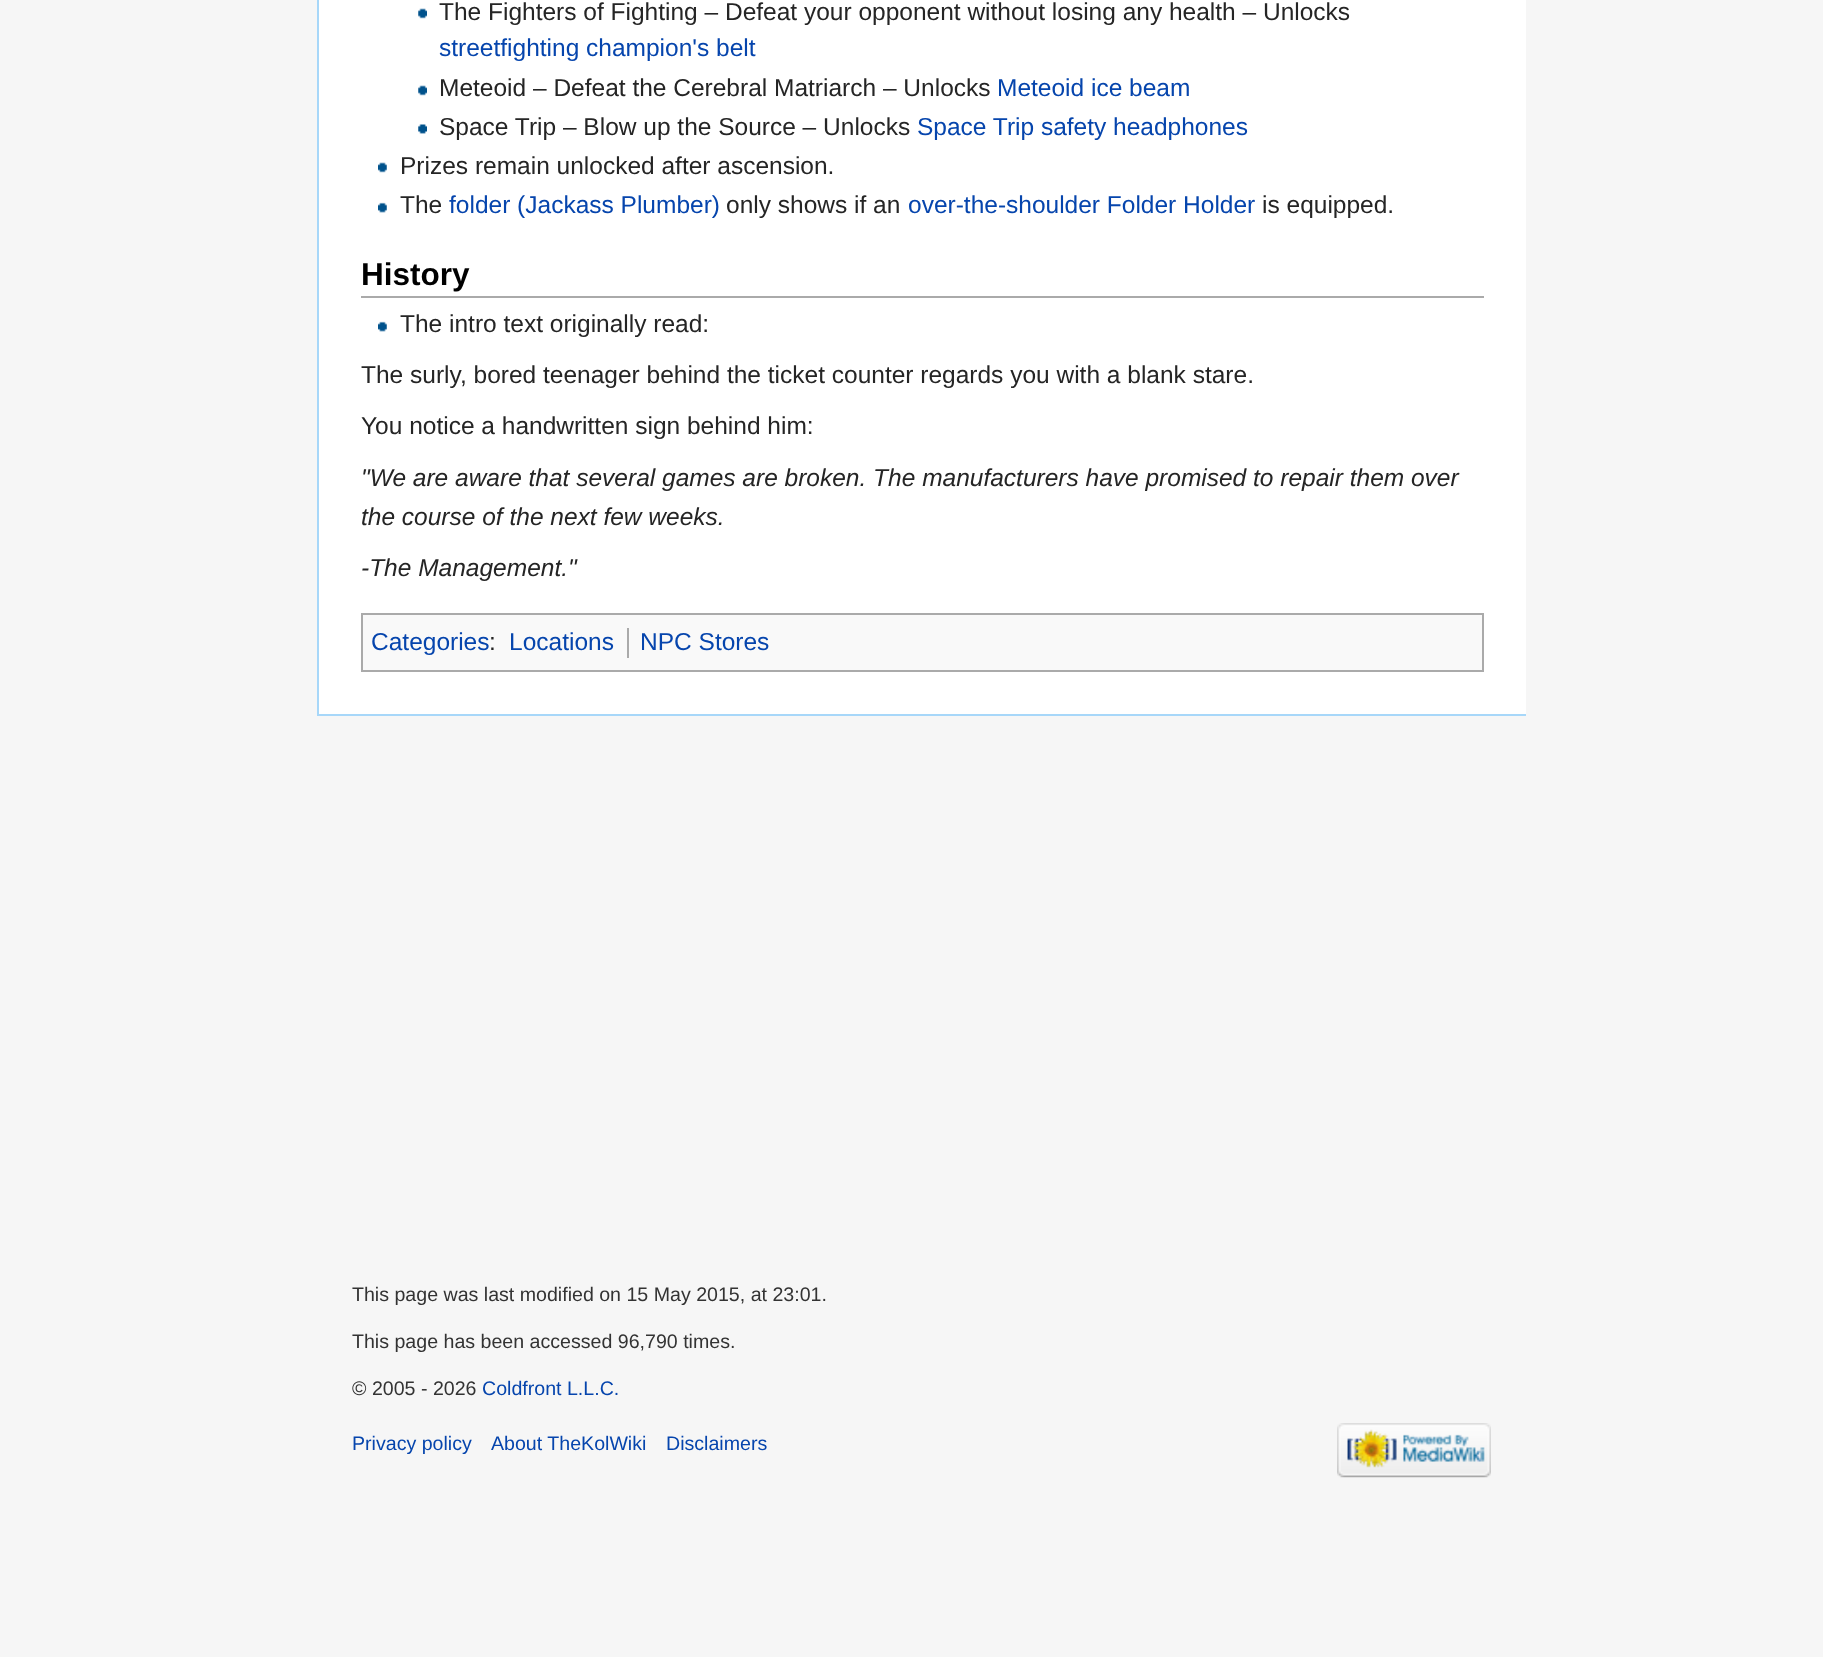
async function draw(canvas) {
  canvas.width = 1823
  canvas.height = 1657
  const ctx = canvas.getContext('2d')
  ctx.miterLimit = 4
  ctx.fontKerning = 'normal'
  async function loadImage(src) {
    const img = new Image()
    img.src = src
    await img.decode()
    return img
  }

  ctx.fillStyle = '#f6f6f6'
  ctx.fillRect(0, 0, 1823, 1657)
  ctx.fillStyle = '#fff'
  ctx.fillRect(319, 0, 1207, 714)
  ctx.fillStyle = '#a7d7f9'
  ctx.fillRect(317, 714, 1209, 2)
  ctx.fillRect(317, 0, 2, 716)
  ctx.drawImage(await loadImage('image0.png'), 418, 8, 9, 11)
  ctx.font = '24.5px Liberation Sans'
  ctx.fillStyle = '#252525'
  ctx.fillText('The Fighters of Fighting – Defeat your opponent without losing any health – Unlocks', 439, 20)
  ctx.fillStyle = '#0645ad'
  ctx.fillText('streetfighting champion\'s belt', 439, 56)
  ctx.drawImage(await loadImage('image0.png'), 418, 85, 9, 11)
  ctx.fillStyle = '#252525'
  ctx.fillText('Meteoid – Defeat the Cerebral Matriarch – Unlocks', 439, 96)
  ctx.fillStyle = '#0645ad'
  ctx.fillText('Meteoid ice beam', 997, 96)
  ctx.drawImage(await loadImage('image1.png'), 418, 124, 9, 10)
  ctx.fillStyle = '#252525'
  ctx.fillText('Space Trip – Blow up the Source – Unlocks', 439, 135)
  ctx.fillStyle = '#0645ad'
  ctx.fillText('Space Trip safety headphones', 917, 135)
  ctx.drawImage(await loadImage('image2.png'), 378, 162, 9, 11)
  ctx.fillStyle = '#252525'
  ctx.fillText('Prizes remain unlocked after ascension.', 400, 174)
  ctx.drawImage(await loadImage('image3.png'), 378, 202, 9, 11)
  ctx.fillText('The', 400, 213)
  ctx.fillStyle = '#0645ad'
  ctx.fillText('folder (Jackass Plumber)', 449, 213)
  ctx.fillStyle = '#252525'
  ctx.fillText('only shows if an', 726, 213)
  ctx.fillStyle = '#0645ad'
  ctx.fillText('over-the-shoulder Folder Holder', 908, 213)
  ctx.fillStyle = '#252525'
  ctx.fillText('is equipped.', 1262, 213)
  ctx.fillStyle = '#aaa'
  ctx.fillRect(361, 296, 1123, 2)
  ctx.font = 'bold 31.5px Liberation Sans'
  ctx.fillStyle = '#000'
  ctx.fillText('History', 361, 285)
  ctx.drawImage(await loadImage('image3.png'), 378, 321, 9, 11)
  ctx.font = '24.5px Liberation Sans'
  ctx.fillStyle = '#252525'
  ctx.fillText('The intro text originally read:', 400, 332)
  ctx.fillText('The surly, bored teenager behind the ticket counter regards you with a blank stare.', 361, 383)
  ctx.fillText('You notice a handwritten sign behind him:', 361, 434)
  ctx.font = 'italic 24.5px Liberation Sans'
  ctx.fillText('"We are aware that several games are broken. The manufacturers have promised to repair them over', 361, 486)
  ctx.fillText('the course of the next few weeks.', 361, 525)
  ctx.fillText('-The Management."', 361, 576)
  ctx.fillStyle = '#f9f9f9'
  ctx.beginPath()
  ctx.rect(362, 614, 1121, 57)
  ctx.fill()
  ctx.strokeStyle = '#aaa'
  ctx.lineWidth = 2
  ctx.stroke()
  ctx.font = '24.5px Liberation Sans'
  ctx.fillStyle = '#0645ad'
  ctx.fillText('Categories', 371, 650)
  ctx.fillStyle = '#252525'
  ctx.fillText(':', 489, 650)
  ctx.fillStyle = '#0645ad'
  ctx.fillText('Locations', 509, 650)
  ctx.fillStyle = '#aaa'
  ctx.fillRect(627, 628, 2, 30)
  ctx.fillStyle = '#0645ad'
  ctx.fillText('NPC Stores', 640, 650)
  ctx.font = '19.6px Liberation Sans'
  ctx.fillStyle = '#333'
  ctx.fillText('This page was last modified on 15 May 2015, at 23:01.', 352, 1301)
  ctx.fillText('This page has been accessed 96,790 times.', 352, 1348)
  ctx.fillText('© 2005 - 2026', 352, 1395)
  ctx.fillStyle = '#0645ad'
  ctx.fillText('Coldfront L.L.C.', 482, 1395)
  ctx.fillText('Privacy policy', 352, 1450)
  ctx.fillText('About TheKolWiki', 491, 1450)
  ctx.fillText('Disclaimers', 666, 1450)
  ctx.drawImage(await loadImage('image4.png'), 1337, 1423, 154, 55)
}

draw(document.querySelector('canvas'))
